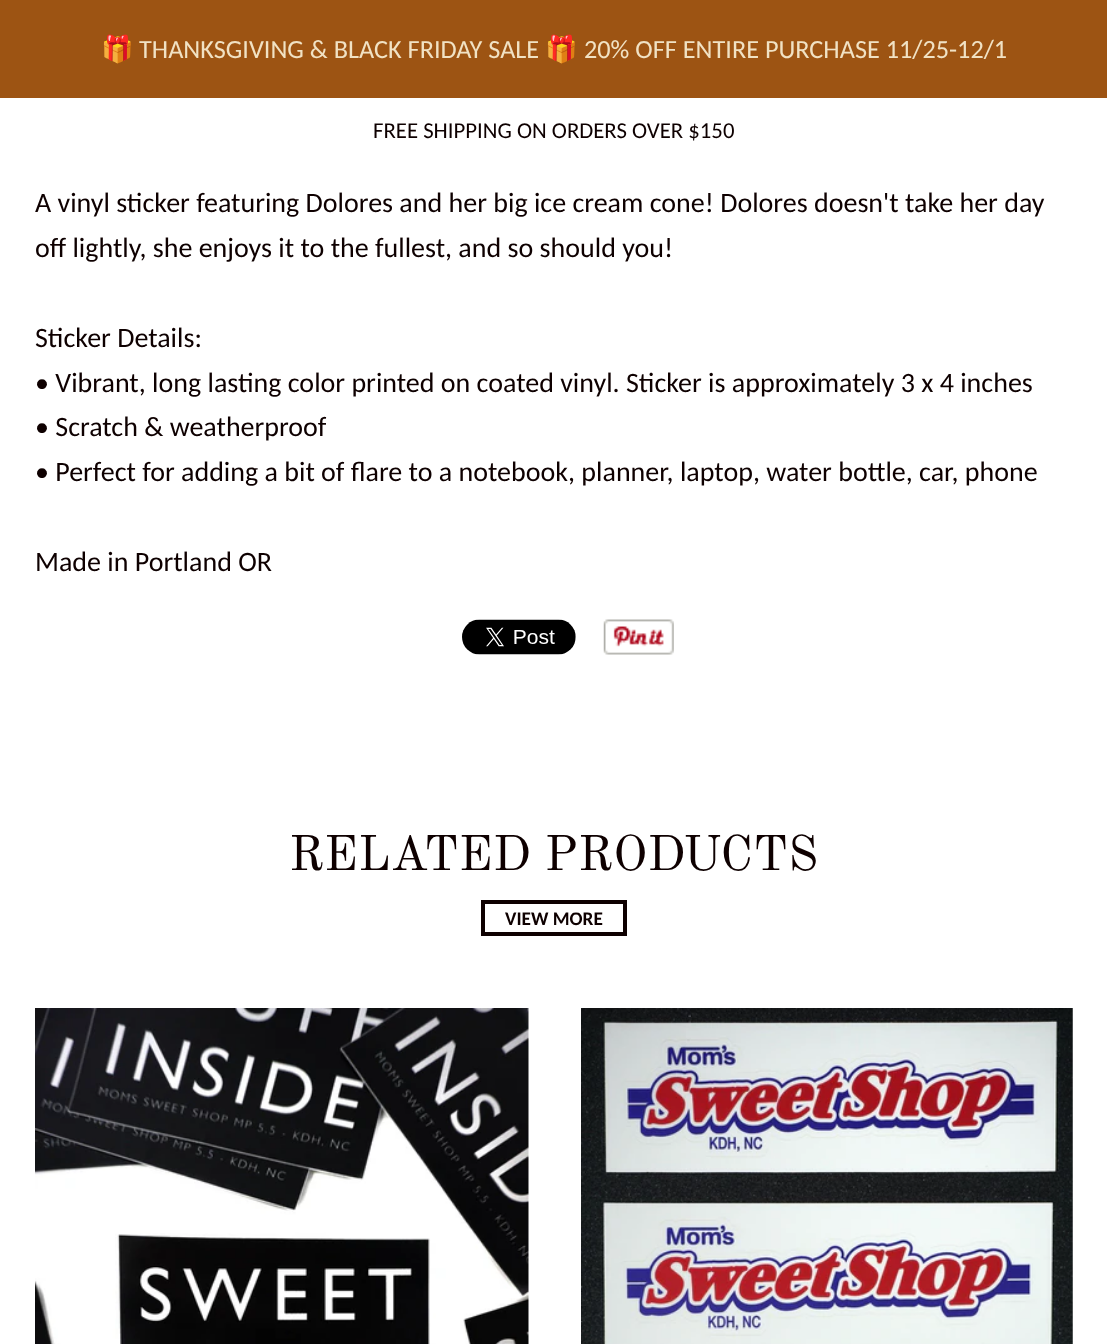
async function draw(canvas) {
  canvas.width = 1107
  canvas.height = 1344
  const ctx = canvas.getContext('2d')
  ctx.miterLimit = 4
  ctx.fontKerning = 'normal'
  async function loadImage(src) {
    const img = new Image()
    img.src = src
    await img.decode()
    return img
  }

  ctx.fillStyle = '#fff'
  ctx.fillRect(0, 0, 1107, 1344)
  ctx.fillStyle = '#9d5413'
  ctx.fillRect(0, 0, 1107, 98)
  ctx.font = '26.25px Noto Color Emoji'
  ctx.fillStyle = '#f1e2c4'
  ctx.fillText('🎁', 101, 58)
  ctx.font = '26.25px Carlito'
  ctx.fillText('THANKSGIVING & BLACK FRIDAY SALE', 139, 58)
  ctx.font = '26.25px Noto Color Emoji'
  ctx.fillText('🎁', 545, 58)
  ctx.font = '26.25px Carlito'
  ctx.fillText('20% OFF ENTIRE PURCHASE 11/25-12/1', 584, 58)
  ctx.font = '22.75px Carlito'
  ctx.fillStyle = '#0e0000'
  ctx.fillText('FREE SHIPPING ON ORDERS OVER $150', 373, 138)
  ctx.font = '28px Carlito'
  ctx.fillText('A vinyl sticker featuring Dolores and her big ice cream cone! Dolores doesn\'t take her day', 35, 212)
  ctx.fillText('off lightly, she enjoys it to the fullest, and so should you!', 35, 257)
  ctx.fillText('Sticker Details:', 35, 347)
  ctx.fillText('• Vibrant, long lasting color printed on coated vinyl. Sticker is approximately 3 x 4 inches', 35, 392)
  ctx.fillText('• Scratch & weatherproof', 35, 436)
  ctx.fillText('• Perfect for adding a bit of flare to a notebook, planner, laptop, water bottle, car, phone', 35, 481)
  ctx.fillText('Made in Portland OR', 35, 571)
  ctx.drawImage(await loadImage('image0.png'), 462, 619, 114, 36)
  ctx.drawImage(await loadImage('image1.png'), 603, 619, 71, 36)
  ctx.font = '49px Old Standard TT'
  ctx.fillText('RELATED PRODUCTS', 289, 870)
  ctx.strokeStyle = '#0e0000'
  ctx.lineWidth = 4
  ctx.strokeRect(483, 902, 142, 32)
  ctx.font = 'bold 19.25px Carlito'
  ctx.fillText('VIEW MORE', 505, 925)
  ctx.drawImage(await loadImage('image2.png'), 35, 1008, 494, 336)
  ctx.drawImage(await loadImage('image3.png'), 581, 1008, 492, 336)
}

draw(document.querySelector('canvas'))
